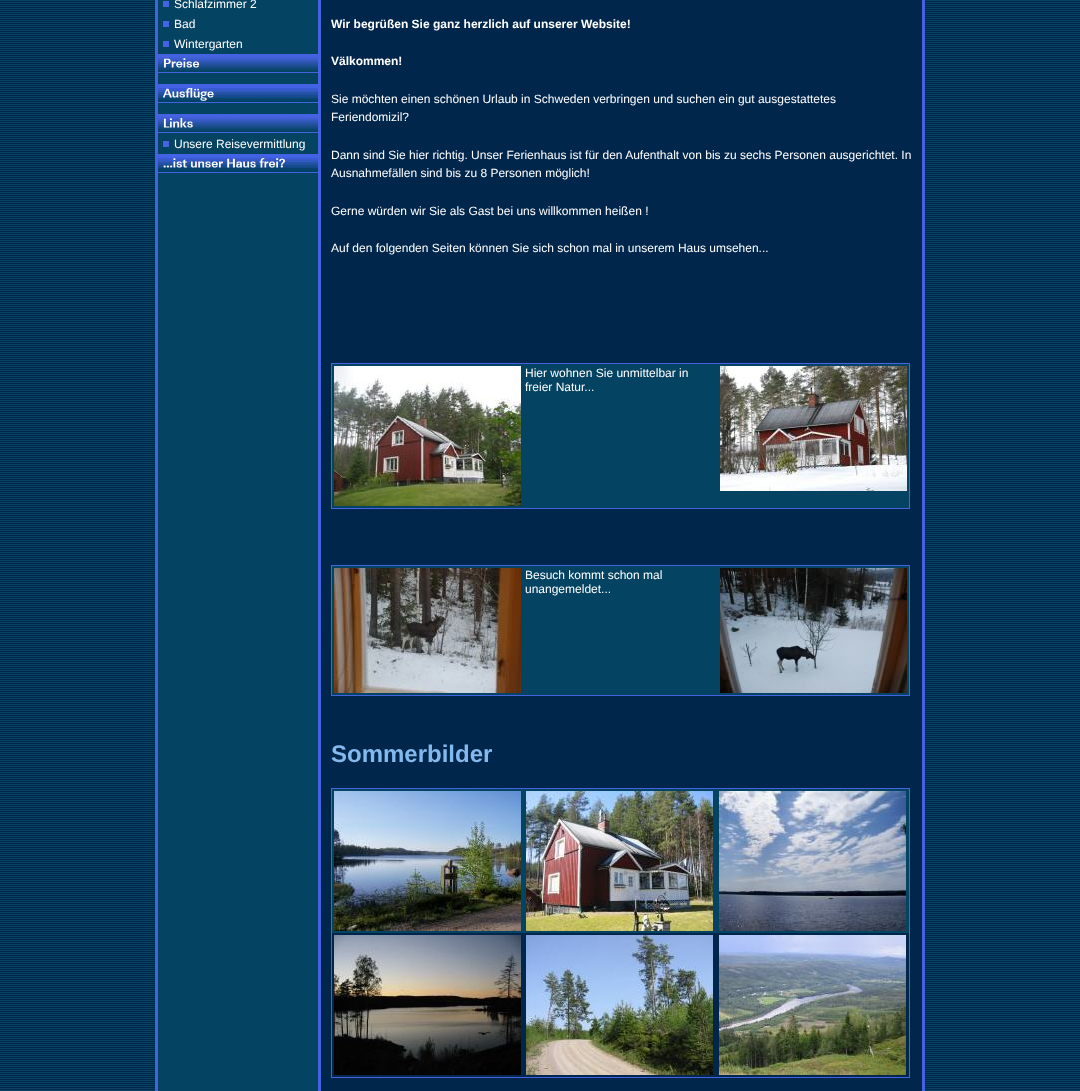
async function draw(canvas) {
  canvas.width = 1080
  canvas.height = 1091
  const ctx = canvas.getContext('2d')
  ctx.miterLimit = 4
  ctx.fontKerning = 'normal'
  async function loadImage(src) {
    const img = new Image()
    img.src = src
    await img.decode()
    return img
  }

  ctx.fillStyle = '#fff'
  ctx.fillRect(0, 0, 1080, 1091)
  ctx.drawImage(await loadImage('image0.png'), 0, 0, 1080, 1091)
  ctx.fillStyle = '#4562e0'
  ctx.fillRect(155, 0, 3, 1091)
  ctx.fillStyle = '#054363'
  ctx.fillRect(158, 1, 160, 1089)
  ctx.fillStyle = '#4562e0'
  ctx.fillRect(163, 1, 6, 6)
  ctx.font = '12px Liberation Sans'
  ctx.fillStyle = '#fff'
  ctx.fillText('Schlafzimmer 2', 174, 8)
  ctx.fillStyle = '#4562e0'
  ctx.fillRect(163, 21, 6, 6)
  ctx.fillStyle = '#fff'
  ctx.fillText('Bad', 174, 28)
  ctx.fillStyle = '#4562e0'
  ctx.fillRect(163, 41, 6, 6)
  ctx.fillStyle = '#fff'
  ctx.fillText('Wintergarten', 174, 48)
  ctx.fillStyle = '#4562e0'
  ctx.fillRect(158, 54, 160, 1)
  ctx.drawImage(await loadImage('image1.png'), 158, 55, 160, 16)
  ctx.fillRect(158, 72, 160, 1)
  ctx.fillRect(158, 84, 160, 1)
  ctx.drawImage(await loadImage('image2.png'), 158, 85, 160, 17)
  ctx.fillRect(158, 102, 160, 1)
  ctx.fillRect(158, 114, 160, 1)
  ctx.drawImage(await loadImage('image3.png'), 158, 115, 160, 16)
  ctx.fillRect(158, 132, 160, 1)
  ctx.fillRect(163, 141, 6, 6)
  ctx.fillStyle = '#fff'
  ctx.fillText('Unsere Reisevermittlung', 174, 148)
  ctx.fillStyle = '#4562e0'
  ctx.fillRect(158, 154, 160, 1)
  ctx.drawImage(await loadImage('image4.png'), 158, 155, 160, 17)
  ctx.fillRect(158, 172, 160, 1)
  ctx.fillRect(318, 0, 3, 1091)
  ctx.fillStyle = '#00264b'
  ctx.fillRect(321, 0, 601, 1091)
  ctx.font = 'bold 12px Liberation Sans'
  ctx.fillStyle = '#fff'
  ctx.fillText('Wir begrüßen Sie ganz herzlich auf unserer Website!', 331, 28)
  ctx.fillText('Välkommen!', 331, 65)
  ctx.font = '12px Liberation Sans'
  ctx.fillText('Sie möchten einen schönen Urlaub in Schweden verbringen und suchen ein gut ausgestattetes', 331, 103)
  ctx.fillText('Feriendomizil?', 331, 121)
  ctx.fillText('Dann sind Sie hier richtig. Unser Ferienhaus ist für den Aufenthalt von bis zu sechs Personen ausgerichtet. In', 331, 159)
  ctx.fillText('Ausnahmefällen sind bis zu 8 Personen möglich!', 331, 177)
  ctx.fillText('Gerne würden wir Sie als Gast bei uns willkommen heißen !', 331, 215)
  ctx.fillText('Auf den folgenden Seiten können Sie sich schon mal in unserem Haus umsehen...', 331, 252)
  ctx.fillStyle = '#4562e0'
  ctx.fillRect(331, 363, 579, 146)
  ctx.fillStyle = '#054363'
  ctx.fillRect(332, 364, 577, 144)
  ctx.drawImage(await loadImage('image5.png'), 334, 366, 187, 140)
  ctx.fillStyle = '#fff'
  ctx.fillText('Hier wohnen Sie unmittelbar in', 525, 377)
  ctx.fillText('freier Natur...', 525, 391)
  ctx.drawImage(await loadImage('image6.png'), 720, 366, 187, 125)
  ctx.fillStyle = '#4562e0'
  ctx.fillRect(331, 565, 579, 131)
  ctx.fillStyle = '#054363'
  ctx.fillRect(332, 566, 577, 129)
  ctx.drawImage(await loadImage('image7.png'), 334, 568, 187, 125)
  ctx.fillStyle = '#fff'
  ctx.fillText('Besuch kommt schon mal', 525, 579)
  ctx.fillText('unangemeldet...', 525, 593)
  ctx.drawImage(await loadImage('image8.png'), 720, 568, 187, 125)
  ctx.font = 'bold 24px Liberation Sans'
  ctx.fillStyle = '#83b9ec'
  ctx.fillText('Sommerbilder', 331, 762)
  ctx.fillStyle = '#4562e0'
  ctx.fillRect(331, 788, 579, 290)
  ctx.fillStyle = '#054363'
  ctx.fillRect(332, 789, 577, 144)
  ctx.drawImage(await loadImage('image9.png'), 334, 791, 187, 140)
  ctx.drawImage(await loadImage('image10.png'), 526, 791, 187, 140)
  ctx.drawImage(await loadImage('image11.png'), 719, 791, 187, 140)
  ctx.fillStyle = '#00264b'
  ctx.fillRect(332, 933, 577, 144)
  ctx.drawImage(await loadImage('image12.png'), 334, 935, 187, 140)
  ctx.drawImage(await loadImage('image13.png'), 526, 935, 187, 140)
  ctx.drawImage(await loadImage('image14.png'), 719, 935, 187, 140)
  ctx.fillStyle = '#4562e0'
  ctx.fillRect(922, 0, 3, 1091)
}

draw(document.querySelector('canvas'))
